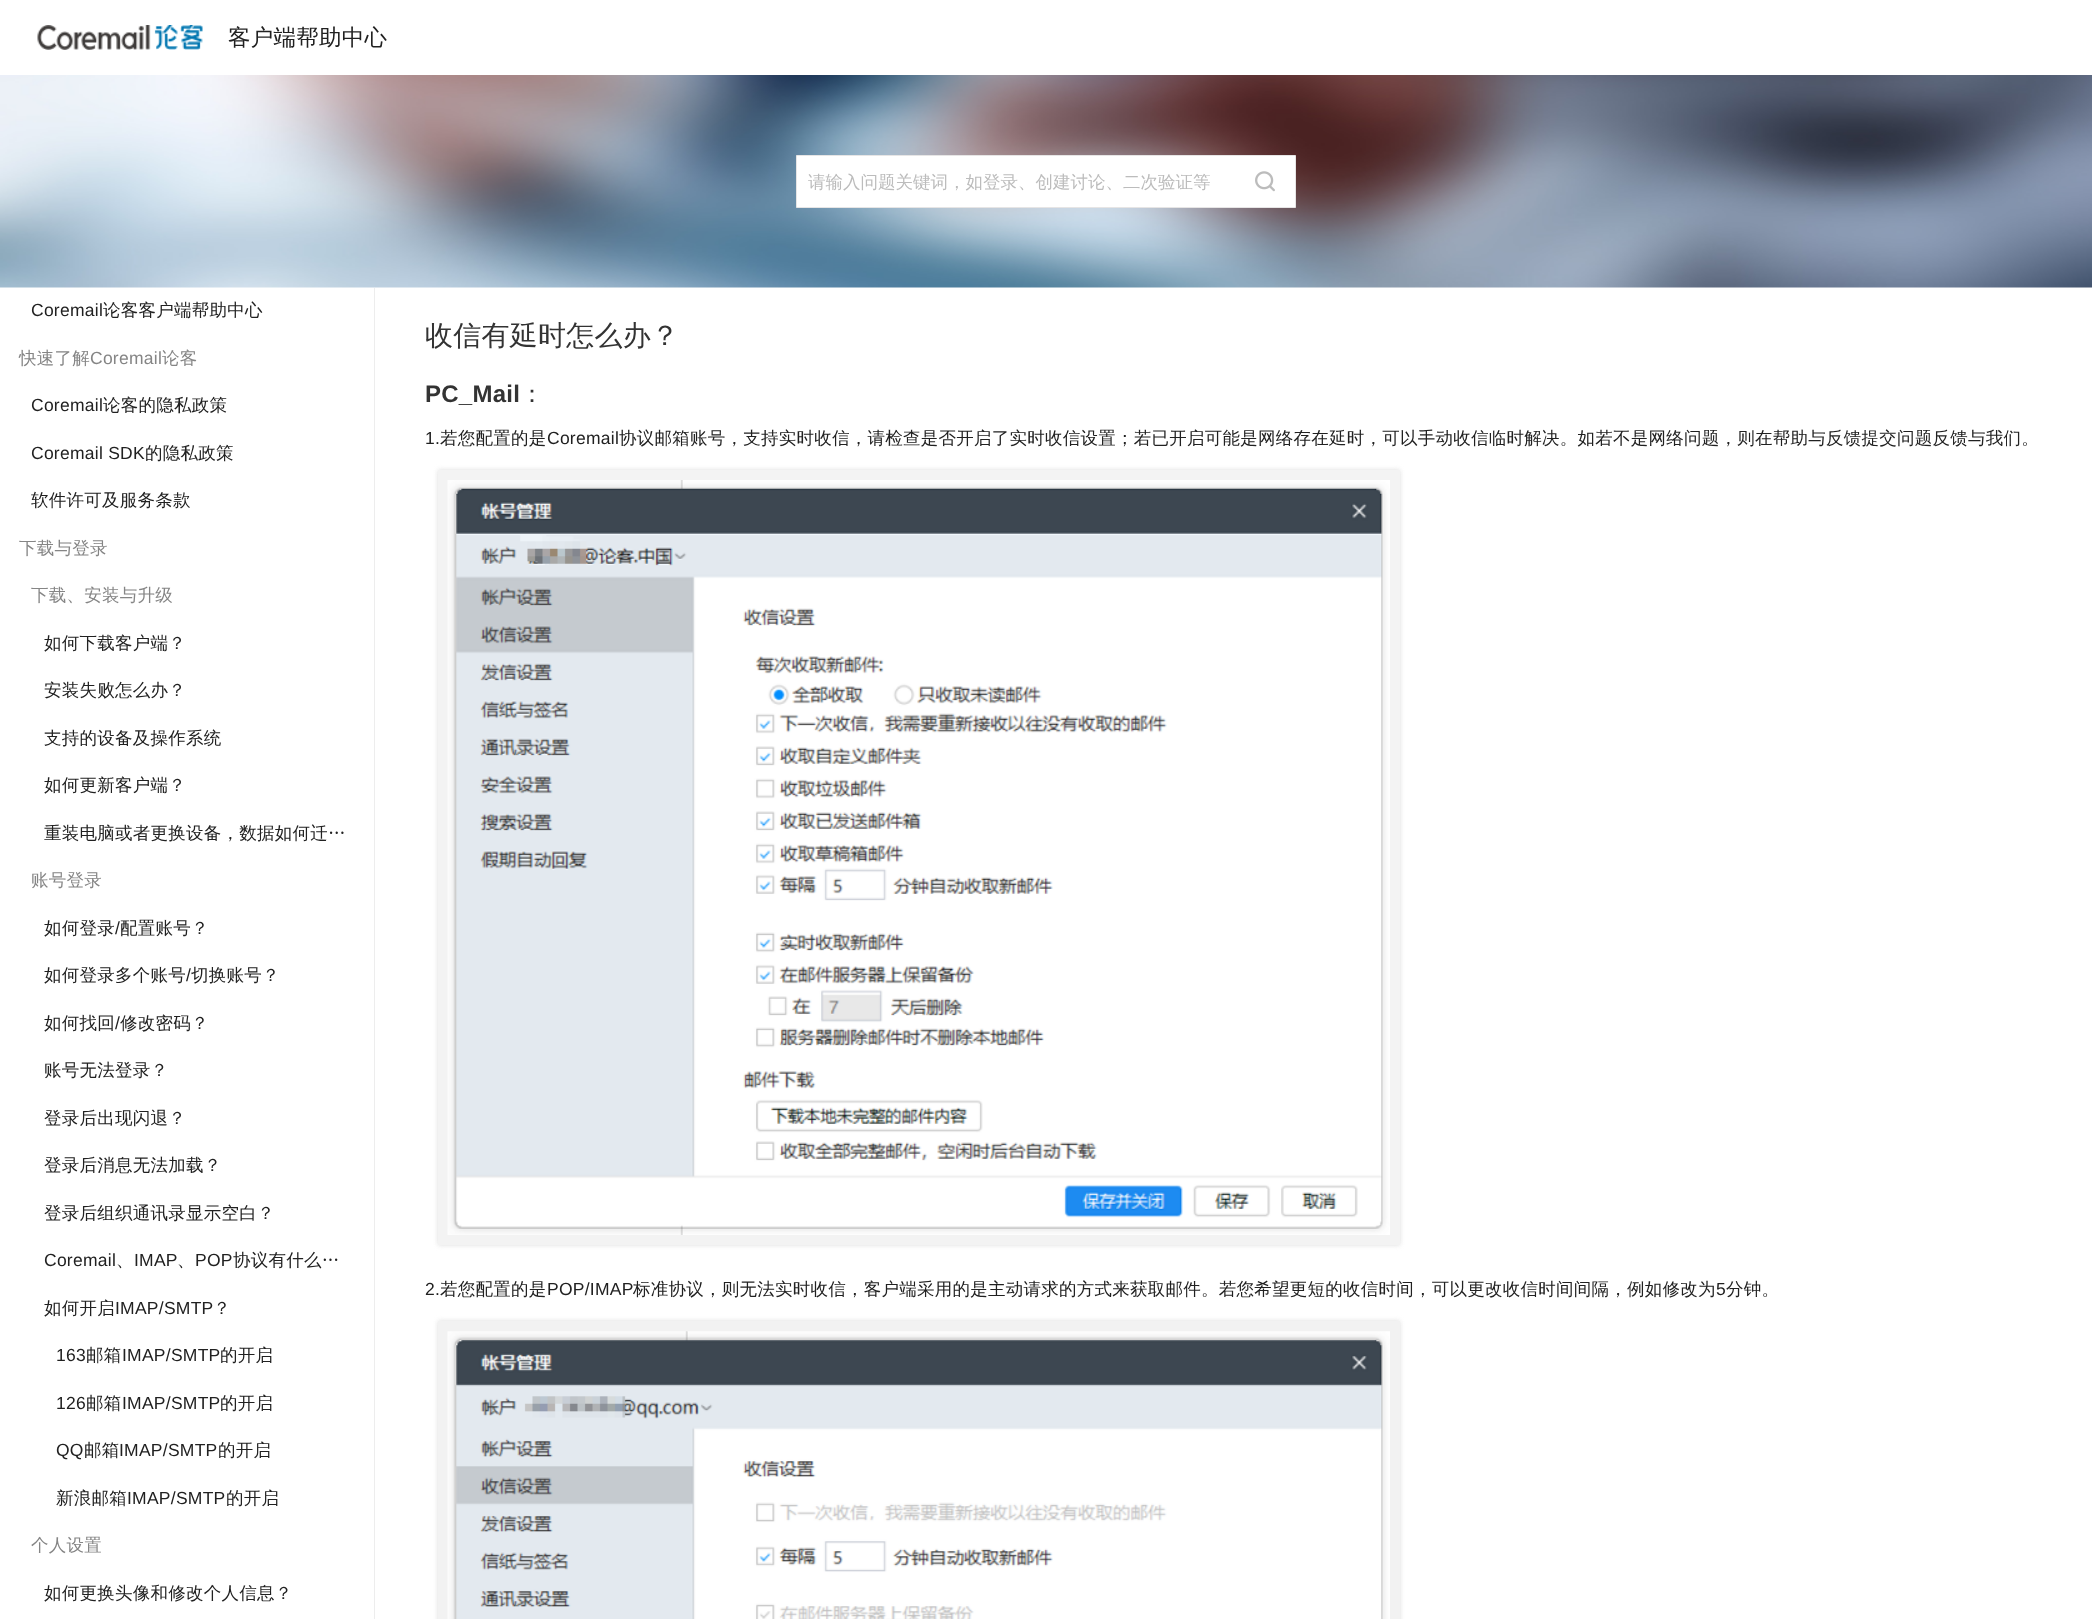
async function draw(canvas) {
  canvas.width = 2092
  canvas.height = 1619
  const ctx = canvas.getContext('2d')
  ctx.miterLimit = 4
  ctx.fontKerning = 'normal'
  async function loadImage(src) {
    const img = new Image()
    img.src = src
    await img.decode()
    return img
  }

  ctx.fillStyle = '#fff'
  ctx.fillRect(0, 0, 2092, 1619)
  ctx.drawImage(await loadImage('image0.png'), 37, 25, 166, 25)
  ctx.letterSpacing = '0.25px'
  ctx.font = '500 22.5px WenQuanYi Zen Hei'
  ctx.fillStyle = '#212121'
  ctx.fillText('客户端帮助中心', 228, 45)
  ctx.drawImage(await loadImage('image1.png'), 0, 75, 2092, 213)
  ctx.fillStyle = '#fff'
  ctx.beginPath()
  ctx.rect(796.5, 155.5, 499, 52)
  ctx.fill()
  ctx.strokeStyle = '#e6e5e5'
  ctx.stroke()
  ctx.letterSpacing = '0px'
  ctx.font = '500 17.5px WenQuanYi Zen Hei'
  ctx.fillStyle = '#bcbcbc'
  ctx.fillText('请输入问题关键词，如登录、创建讨论、二次验证等', 808, 188)
  ctx.drawImage(await loadImage('image2.png'), 1255, 171, 20, 21)
  ctx.fillStyle = '#ededed'
  ctx.fillRect(374, 288, 1, 1331)
  ctx.letterSpacing = '0.25px'
  ctx.font = '17.5px Liberation Sans'
  ctx.fillStyle = '#212121'
  ctx.fillText('Coremail', 31, 316)
  ctx.font = '500 17.5px WenQuanYi Zen Hei'
  ctx.fillText('论客客户端帮助中心', 103, 316)
  ctx.fillStyle = '#858585'
  ctx.fillText('快速了解', 19, 364)
  ctx.font = '17.5px Liberation Sans'
  ctx.fillText('Coremail', 90, 364)
  ctx.font = '500 17.5px WenQuanYi Zen Hei'
  ctx.fillText('论客', 162, 364)
  ctx.font = '17.5px Liberation Sans'
  ctx.fillStyle = '#212121'
  ctx.fillText('Coremail', 31, 411)
  ctx.font = '500 17.5px WenQuanYi Zen Hei'
  ctx.fillText('论客的隐私政策', 103, 411)
  ctx.font = '17.5px Liberation Sans'
  ctx.fillText('Coremail SDK', 31, 459)
  ctx.font = '500 17.5px WenQuanYi Zen Hei'
  ctx.fillText('的隐私政策', 145, 459)
  ctx.fillText('软件许可及服务条款', 31, 506)
  ctx.fillStyle = '#858585'
  ctx.fillText('下载与登录', 19, 554)
  ctx.fillText('下载、安装与升级', 31, 601)
  ctx.fillStyle = '#212121'
  ctx.fillText('如何下载客户端？', 44, 649)
  ctx.fillText('安装失败怎么办？', 44, 696)
  ctx.fillText('支持的设备及操作系统', 44, 744)
  ctx.fillText('如何更新客户端？', 44, 791)
  ctx.fillText('重装电脑或者更换设备，数据如何迁…', 44, 839)
  ctx.fillStyle = '#858585'
  ctx.fillText('账号登录', 31, 886)
  ctx.fillStyle = '#212121'
  ctx.fillText('如何登录', 44, 934)
  ctx.font = '17.5px Liberation Sans'
  ctx.fillText('/', 115, 934)
  ctx.font = '500 17.5px WenQuanYi Zen Hei'
  ctx.fillText('配置账号？', 120, 934)
  ctx.fillText('如何登录多个账号', 44, 981)
  ctx.font = '17.5px Liberation Sans'
  ctx.fillText('/', 186, 981)
  ctx.font = '500 17.5px WenQuanYi Zen Hei'
  ctx.fillText('切换账号？', 191, 981)
  ctx.fillText('如何找回', 44, 1029)
  ctx.font = '17.5px Liberation Sans'
  ctx.fillText('/', 115, 1029)
  ctx.font = '500 17.5px WenQuanYi Zen Hei'
  ctx.fillText('修改密码？', 120, 1029)
  ctx.fillText('账号无法登录？', 44, 1076)
  ctx.fillText('登录后出现闪退？', 44, 1124)
  ctx.fillText('登录后消息无法加载？', 44, 1171)
  ctx.fillText('登录后组织通讯录显示空白？', 44, 1219)
  ctx.font = '17.5px Liberation Sans'
  ctx.fillText('Coremail', 44, 1266)
  ctx.font = '500 17.5px WenQuanYi Zen Hei'
  ctx.fillText('、', 116, 1266)
  ctx.font = '17.5px Liberation Sans'
  ctx.fillText('IMAP', 134, 1266)
  ctx.font = '500 17.5px WenQuanYi Zen Hei'
  ctx.fillText('、', 177, 1266)
  ctx.font = '17.5px Liberation Sans'
  ctx.fillText('POP', 195, 1266)
  ctx.font = '500 17.5px WenQuanYi Zen Hei'
  ctx.fillText('协议有什么…', 233, 1266)
  ctx.fillText('如何开启', 44, 1314)
  ctx.font = '17.5px Liberation Sans'
  ctx.fillText('IMAP/SMTP', 115, 1314)
  ctx.font = '500 17.5px WenQuanYi Zen Hei'
  ctx.fillText('？', 213, 1314)
  ctx.font = '17.5px Liberation Sans'
  ctx.fillText('163', 56, 1361)
  ctx.font = '500 17.5px WenQuanYi Zen Hei'
  ctx.fillText('邮箱', 86, 1361)
  ctx.font = '17.5px Liberation Sans'
  ctx.fillText('IMAP/SMTP', 122, 1361)
  ctx.font = '500 17.5px WenQuanYi Zen Hei'
  ctx.fillText('的开启', 220, 1361)
  ctx.font = '17.5px Liberation Sans'
  ctx.fillText('126', 56, 1409)
  ctx.font = '500 17.5px WenQuanYi Zen Hei'
  ctx.fillText('邮箱', 86, 1409)
  ctx.font = '17.5px Liberation Sans'
  ctx.fillText('IMAP/SMTP', 122, 1409)
  ctx.font = '500 17.5px WenQuanYi Zen Hei'
  ctx.fillText('的开启', 220, 1409)
  ctx.font = '17.5px Liberation Sans'
  ctx.fillText('QQ', 56, 1456)
  ctx.font = '500 17.5px WenQuanYi Zen Hei'
  ctx.fillText('邮箱', 84, 1456)
  ctx.font = '17.5px Liberation Sans'
  ctx.fillText('IMAP/SMTP', 119, 1456)
  ctx.font = '500 17.5px WenQuanYi Zen Hei'
  ctx.fillText('的开启', 218, 1456)
  ctx.fillText('新浪邮箱', 56, 1504)
  ctx.font = '17.5px Liberation Sans'
  ctx.fillText('IMAP/SMTP', 127, 1504)
  ctx.font = '500 17.5px WenQuanYi Zen Hei'
  ctx.fillText('的开启', 226, 1504)
  ctx.fillStyle = '#858585'
  ctx.fillText('个人设置', 31, 1551)
  ctx.fillStyle = '#212121'
  ctx.fillText('如何更换头像和修改个人信息？', 44, 1599)
  ctx.font = '500 28px WenQuanYi Zen Hei'
  ctx.fillStyle = '#333'
  ctx.fillText('收信有延时怎么办？', 425, 345)
  ctx.font = 'bold 24px Liberation Sans'
  ctx.fillText('PC_Mail', 425, 402)
  ctx.font = '500 24px WenQuanYi Zen Hei'
  ctx.fillText('：', 520, 402)
  ctx.font = '17.5px Liberation Sans'
  ctx.fillStyle = '#212121'
  ctx.fillText('1.', 425, 444)
  ctx.font = '500 17.5px WenQuanYi Zen Hei'
  ctx.fillText('若您配置的是', 440, 444)
  ctx.font = '17.5px Liberation Sans'
  ctx.fillText('Coremail', 547, 444)
  ctx.font = '500 17.5px WenQuanYi Zen Hei'
  ctx.fillText('协议邮箱账号，支持实时收信，请检查是否开启了实时收信设置；若已开启可能是网络存在延时，可以手动收信临时解决。如若不是网络问题，则在帮助与反馈提交问题反馈与我们。', 619, 444)
  ctx.fillStyle = '#dcdcdc'
  ctx.filter = 'blur(2.5px)'
  ctx.beginPath()
  ctx.rect(438, 470, 962, 775)
  ctx.fill()
  ctx.filter = 'none'
  ctx.fillStyle = '#f3f3f3'
  ctx.fillRect(438, 470, 962, 775)
  ctx.drawImage(await loadImage('image3.png'), 447, 480, 943, 755)
  ctx.font = '17.5px Liberation Sans'
  ctx.fillStyle = '#212121'
  ctx.fillText('2.', 425, 1295)
  ctx.font = '500 17.5px WenQuanYi Zen Hei'
  ctx.fillText('若您配置的是', 440, 1295)
  ctx.font = '17.5px Liberation Sans'
  ctx.fillText('POP/IMAP', 547, 1295)
  ctx.font = '500 17.5px WenQuanYi Zen Hei'
  ctx.fillText('标准协议，则无法实时收信，客户端采用的是主动请求的方式来获取邮件。若您希望更短的收信时间，可以更改收信时间间隔，例如修改为', 633, 1295)
  ctx.font = '17.5px Liberation Sans'
  ctx.fillText('5', 1716, 1295)
  ctx.font = '500 17.5px WenQuanYi Zen Hei'
  ctx.fillText('分钟。', 1726, 1295)
  ctx.save()
  ctx.beginPath()
  ctx.moveTo(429, 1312)
  ctx.lineTo(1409, 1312)
  ctx.lineTo(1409, 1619)
  ctx.lineTo(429, 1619)
  ctx.closePath()
  ctx.moveTo(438, 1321)
  ctx.lineTo(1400, 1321)
  ctx.lineTo(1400, 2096)
  ctx.lineTo(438, 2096)
  ctx.closePath()
  ctx.clip('evenodd')
  ctx.fillStyle = '#dcdcdc'
  ctx.filter = 'blur(2.5px)'
  ctx.beginPath()
  ctx.rect(438, 1321, 962, 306)
  ctx.fill()
  ctx.filter = 'none'
  ctx.restore()
  ctx.fillStyle = '#e4e4e478'
  ctx.fillRect(438, 1321, 962, 298)
  ctx.drawImage(await loadImage('image4.png'), 447, 1331, 943, 288)
}

draw(document.querySelector('canvas'))
